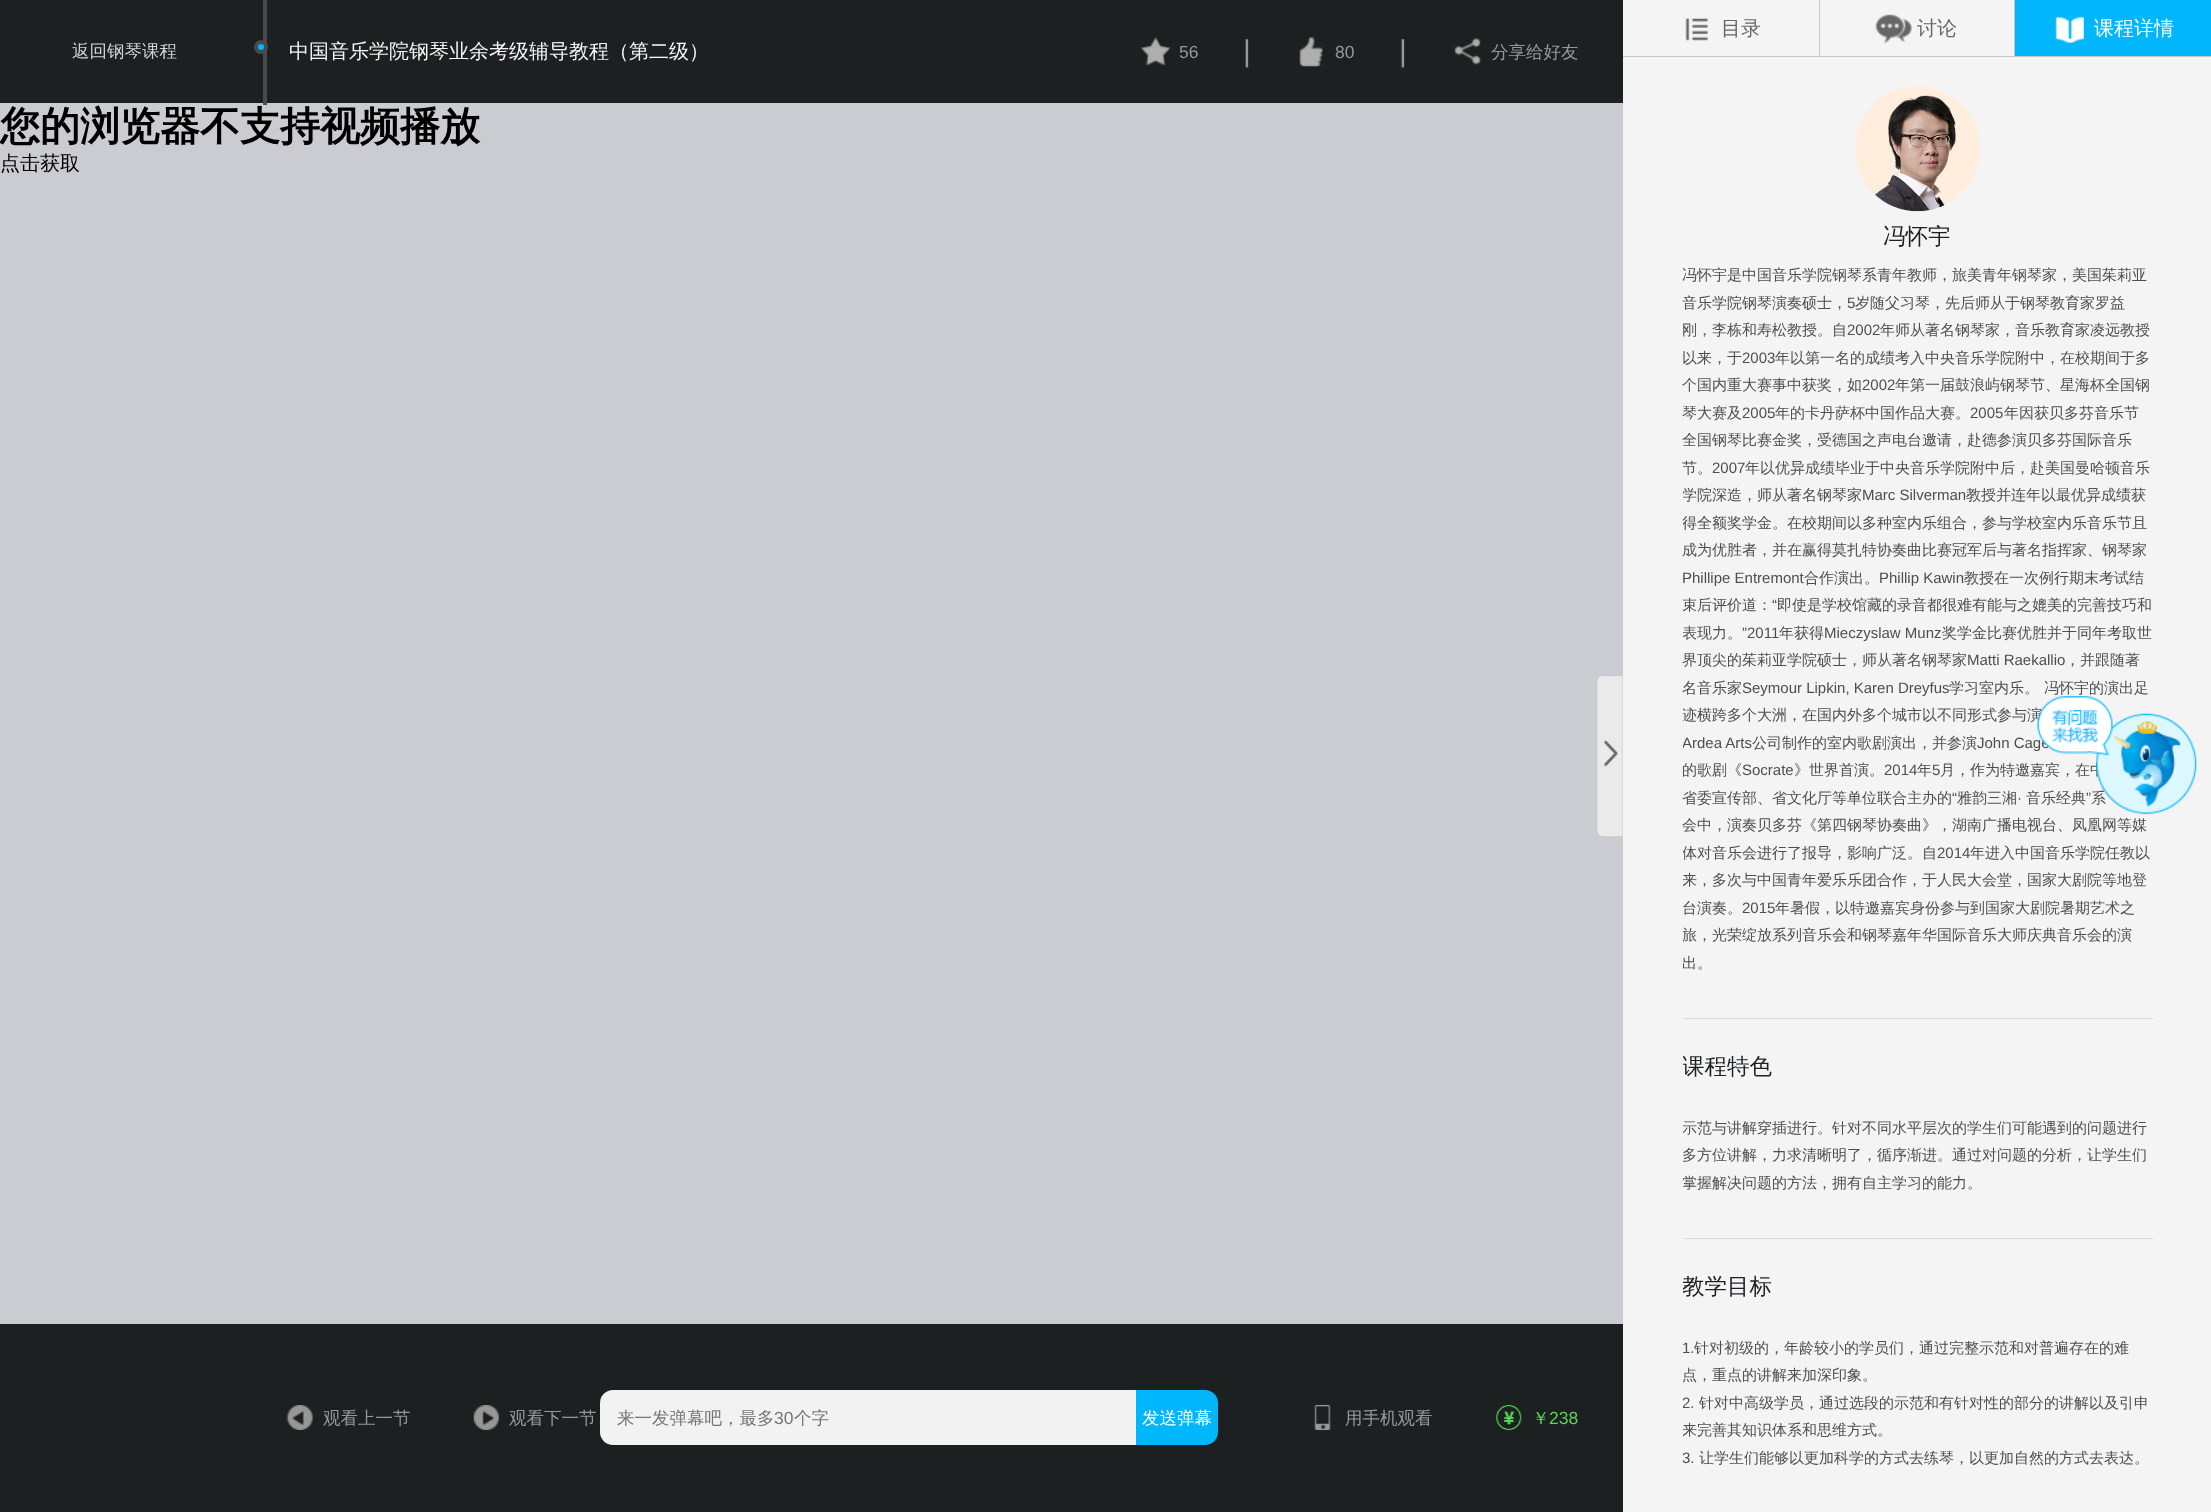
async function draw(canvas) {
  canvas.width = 2211
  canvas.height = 1512
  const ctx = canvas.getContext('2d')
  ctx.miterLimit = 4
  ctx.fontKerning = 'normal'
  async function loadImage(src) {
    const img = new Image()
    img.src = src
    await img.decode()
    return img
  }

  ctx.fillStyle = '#cbccd1'
  ctx.fillRect(0, 0, 2211, 1512)
  ctx.fillStyle = '#1c2021'
  ctx.fillRect(0, 0, 1623, 103)
  ctx.font = '500 17.5px WenQuanYi Zen Hei'
  ctx.fillStyle = '#d2d2d2'
  ctx.fillText('返回钢琴课程', 72, 57)
  ctx.fillStyle = '#474b4c'
  ctx.fillRect(263, 0, 4, 105)
  ctx.fillStyle = '#00b7fd'
  ctx.beginPath()
  ctx.arc(261, 47, 5, 0, 2 * Math.PI)
  ctx.fill()
  ctx.strokeStyle = '#474b4c'
  ctx.lineWidth = 4
  ctx.stroke()
  ctx.font = '500 20px WenQuanYi Zen Hei'
  ctx.fillStyle = '#f6f4f5'
  ctx.fillText('中国音乐学院钢琴业余考级辅导教程（第二级）', 289, 58)
  ctx.drawImage(await loadImage('image0.png'), 1140, 37, 31, 29)
  ctx.font = '17.5px Liberation Sans'
  ctx.fillStyle = '#979797'
  ctx.fillText('56', 1179, 58)
  ctx.font = '30px Liberation Sans'
  ctx.fillText('|', 1243, 61)
  ctx.drawImage(await loadImage('image1.png'), 1299, 37, 24, 30)
  ctx.font = '17.5px Liberation Sans'
  ctx.fillText('80', 1335, 58)
  ctx.font = '30px Liberation Sans'
  ctx.fillText('|', 1399, 61)
  ctx.drawImage(await loadImage('image2.png'), 1454, 38, 27, 27)
  ctx.font = '500 17.5px WenQuanYi Zen Hei'
  ctx.fillText('分享给好友', 1491, 58)
  ctx.font = 'bold 40px WenQuanYi Zen Hei'
  ctx.fillStyle = '#000'
  ctx.fillText('您的浏览器不支持视频播放', 0, 140)
  ctx.font = '500 20px WenQuanYi Zen Hei'
  ctx.fillText('点击获取', 0, 170)
  ctx.fillStyle = '#1c2021'
  ctx.fillRect(0, 1324, 1623, 188)
  ctx.drawImage(await loadImage('image3.png'), 286, 1405, 27, 25)
  ctx.font = '500 17.5px WenQuanYi Zen Hei'
  ctx.fillStyle = '#979797'
  ctx.fillText('观看上一节', 323, 1424)
  ctx.drawImage(await loadImage('image4.png'), 473, 1405, 26, 25)
  ctx.fillText('观看下一节', 509, 1424)
  ctx.fillStyle = '#f2f2f2'
  ctx.beginPath()
  ctx.roundRect(600, 1390, 536, 55, [13, 0, 0, 13])
  ctx.fill()
  ctx.fillStyle = '#757575'
  ctx.fillText('来一发弹幕吧，最多', 617, 1424)
  ctx.font = '17.5px Liberation Sans'
  ctx.fillText('30', 774, 1424)
  ctx.font = '500 17.5px WenQuanYi Zen Hei'
  ctx.fillText('个字', 794, 1424)
  ctx.fillStyle = '#01b6fb'
  ctx.beginPath()
  ctx.roundRect(1136, 1390, 82, 55, [0, 13, 13, 0])
  ctx.fill()
  ctx.fillStyle = '#fff'
  ctx.fillText('发送弹幕', 1142, 1424)
  ctx.drawImage(await loadImage('image5.png'), 1314, 1405, 17, 25)
  ctx.fillStyle = '#979797'
  ctx.fillText('用手机观看', 1345, 1424)
  ctx.drawImage(await loadImage('image6.png'), 1496, 1405, 26, 25)
  ctx.fillStyle = '#59d455'
  ctx.fillText('￥', 1532, 1424)
  ctx.font = '17.5px Liberation Sans'
  ctx.fillText('238', 1549, 1424)
  ctx.fillStyle = '#f4f4f4'
  ctx.fillRect(1623, 0, 588, 1512)
  ctx.fillStyle = '#c6c6c6'
  ctx.fillRect(1623, 56, 588, 1)
  ctx.drawImage(await loadImage('image7.png'), 1685, 18, 23, 23)
  ctx.font = '500 20px WenQuanYi Zen Hei'
  ctx.fillStyle = '#666'
  ctx.fillText('目录', 1721, 35)
  ctx.fillStyle = '#c6c6c6'
  ctx.fillRect(2014, 0, 1, 56)
  ctx.fillRect(1819, 0, 1, 56)
  ctx.drawImage(await loadImage('image8.png'), 1875, 14, 37, 29)
  ctx.fillStyle = '#666'
  ctx.fillText('讨论', 1917, 35)
  ctx.fillStyle = '#01b6fb'
  ctx.fillRect(2015, 0, 196, 56)
  ctx.drawImage(await loadImage('image9.png'), 2055, 16, 29, 27)
  ctx.fillStyle = '#fff'
  ctx.fillText('课程详情', 2094, 35)
  ctx.drawImage(await loadImage('image10.png'), 1597, 676, 26, 161)
  ctx.drawImage(await loadImage('image11.png'), 1855, 86, 125, 126)
  ctx.font = '500 22.5px WenQuanYi Zen Hei'
  ctx.fillStyle = '#1d2122'
  ctx.fillText('冯怀宇', 1883, 244)
  ctx.fillStyle = '#dbdbdb'
  ctx.fillRect(1683, 1018, 470, 1)
  ctx.font = '500 15px WenQuanYi Zen Hei'
  ctx.fillStyle = '#4e4e4e'
  ctx.fillText('冯怀宇是中国音乐学院钢琴系青年教师，旅美青年钢琴家，美国茱莉亚', 1682, 280)
  ctx.fillText('音乐学院钢琴演奏硕士，', 1682, 308)
  ctx.font = '15px Liberation Sans'
  ctx.fillText('5', 1847, 308)
  ctx.font = '500 15px WenQuanYi Zen Hei'
  ctx.fillText('岁随父习琴，先后师从于钢琴教育家罗益', 1855, 308)
  ctx.fillText('刚，李栋和寿松教授。自', 1682, 335)
  ctx.font = '15px Liberation Sans'
  ctx.fillText('2002', 1847, 335)
  ctx.font = '500 15px WenQuanYi Zen Hei'
  ctx.fillText('年师从著名钢琴家，音乐教育家凌远教授', 1880, 335)
  ctx.fillText('以来，于', 1682, 363)
  ctx.font = '15px Liberation Sans'
  ctx.fillText('2003', 1742, 363)
  ctx.font = '500 15px WenQuanYi Zen Hei'
  ctx.fillText('年以第一名的成绩考入中央音乐学院附中，在校期间于多', 1775, 363)
  ctx.fillText('个国内重大赛事中获奖，如', 1682, 390)
  ctx.font = '15px Liberation Sans'
  ctx.fillText('2002', 1862, 390)
  ctx.font = '500 15px WenQuanYi Zen Hei'
  ctx.fillText('年第一届鼓浪屿钢琴节、星海杯全国钢', 1895, 390)
  ctx.fillText('琴大赛及', 1682, 418)
  ctx.font = '15px Liberation Sans'
  ctx.fillText('2005', 1742, 418)
  ctx.font = '500 15px WenQuanYi Zen Hei'
  ctx.fillText('年的卡丹萨杯中国作品大赛。', 1775, 418)
  ctx.font = '15px Liberation Sans'
  ctx.fillText('2005', 1970, 418)
  ctx.font = '500 15px WenQuanYi Zen Hei'
  ctx.fillText('年因获贝多芬音乐节', 2004, 418)
  ctx.fillText('全国钢琴比赛金奖，受德国之声电台邀请，赴德参演贝多芬国际音乐', 1682, 445)
  ctx.fillText('节。', 1682, 473)
  ctx.font = '15px Liberation Sans'
  ctx.fillText('2007', 1712, 473)
  ctx.font = '500 15px WenQuanYi Zen Hei'
  ctx.fillText('年以优异成绩毕业于中央音乐学院附中后，赴美国曼哈顿音乐', 1745, 473)
  ctx.save()
  ctx.beginPath()
  ctx.rect(1683, 58, 470, 961)
  ctx.clip()
  ctx.fillText('学院深造，师从著名钢琴家', 1682, 500)
  ctx.restore()
  ctx.font = '15px Liberation Sans'
  ctx.fillText('Marc Silverman', 1862, 500)
  ctx.font = '500 15px WenQuanYi Zen Hei'
  ctx.fillText('教授并连年以最优异成绩获', 1966, 500)
  ctx.save()
  ctx.beginPath()
  ctx.rect(1683, 58, 470, 961)
  ctx.clip()
  ctx.fillText('得全额奖学金。在校期间以多种室内乐组合，参与学校室内乐音乐节且', 1682, 528)
  ctx.restore()
  ctx.fillText('成为优胜者，并在赢得莫扎特协奏曲比赛冠军后与著名指挥家、钢琴家', 1682, 555)
  ctx.font = '15px Liberation Sans'
  ctx.fillText('Phillipe Entremont', 1682, 583)
  ctx.font = '500 15px WenQuanYi Zen Hei'
  ctx.fillText('合作演出。', 1804, 583)
  ctx.font = '15px Liberation Sans'
  ctx.fillText('Phillip Kawin', 1879, 583)
  ctx.font = '500 15px WenQuanYi Zen Hei'
  ctx.fillText('教授在一次例行期末考试结', 1964, 583)
  ctx.save()
  ctx.beginPath()
  ctx.rect(1683, 58, 470, 961)
  ctx.clip()
  ctx.fillText('束后评价道：', 1682, 610)
  ctx.restore()
  ctx.font = '15px Liberation Sans'
  ctx.fillText('“', 1772, 610)
  ctx.font = '500 15px WenQuanYi Zen Hei'
  ctx.fillText('即使是学校馆藏的录音都很难有能与之媲美的完善技巧和', 1777, 610)
  ctx.save()
  ctx.beginPath()
  ctx.rect(1683, 58, 470, 961)
  ctx.clip()
  ctx.fillText('表现力。', 1682, 638)
  ctx.restore()
  ctx.font = '15px Liberation Sans'
  ctx.fillText('”2011', 1742, 638)
  ctx.font = '500 15px WenQuanYi Zen Hei'
  ctx.fillText('年获得', 1779, 638)
  ctx.font = '15px Liberation Sans'
  ctx.fillText('Mieczyslaw Munz', 1824, 638)
  ctx.font = '500 15px WenQuanYi Zen Hei'
  ctx.fillText('奖学金比赛优胜并于同年考取世', 1942, 638)
  ctx.fillText('界顶尖的茱莉亚学院硕士，师从著名钢琴家', 1682, 665)
  ctx.font = '15px Liberation Sans'
  ctx.fillText('Matti Raekallio', 1967, 665)
  ctx.font = '500 15px WenQuanYi Zen Hei'
  ctx.fillText('，并跟随著', 2065, 665)
  ctx.fillText('名音乐家', 1682, 693)
  ctx.font = '15px Liberation Sans'
  ctx.fillText('Seymour Lipkin, Karen Dreyfus', 1742, 693)
  ctx.font = '500 15px WenQuanYi Zen Hei'
  ctx.fillText('学习室内乐。', 1949, 693)
  ctx.fillText('冯怀宇的演出足', 2044, 693)
  ctx.save()
  ctx.beginPath()
  ctx.rect(1683, 58, 470, 961)
  ctx.clip()
  ctx.fillText('迹横跨多个大洲，在国内外多个城市以不同形式参与演', 1682, 720)
  ctx.font = '15px Liberation Sans'
  ctx.fillText('Ardea Arts', 1682, 748)
  ctx.restore()
  ctx.fillText('公司制作的室内歌剧演出，并参演', 1752, 748)
  ctx.font = '15px Liberation Sans'
  ctx.fillText('John Cage', 1977, 748)
  ctx.save()
  ctx.beginPath()
  ctx.rect(1683, 58, 470, 961)
  ctx.clip()
  ctx.font = '500 15px WenQuanYi Zen Hei'
  ctx.fillText('的歌剧《', 1682, 775)
  ctx.restore()
  ctx.fillText('Socrate', 1742, 775)
  ctx.font = '500 15px WenQuanYi Zen Hei'
  ctx.fillText('》世界首演。', 1794, 775)
  ctx.font = '15px Liberation Sans'
  ctx.fillText('2014', 1884, 775)
  ctx.font = '500 15px WenQuanYi Zen Hei'
  ctx.fillText('年', 1917, 775)
  ctx.font = '15px Liberation Sans'
  ctx.fillText('5', 1932, 775)
  ctx.font = '500 15px WenQuanYi Zen Hei'
  ctx.fillText('月，作为特邀嘉宾，在中', 1940, 775)
  ctx.fillText('省委宣传部、省文化厅等单位联合主办的', 1682, 803)
  ctx.font = '15px Liberation Sans'
  ctx.fillText('“', 1952, 803)
  ctx.font = '500 15px WenQuanYi Zen Hei'
  ctx.fillText('雅韵三湘', 1957, 803)
  ctx.fillText('音乐经典', 2026, 803)
  ctx.font = '15px Liberation Sans'
  ctx.fillText('”', 2086, 803)
  ctx.font = '500 15px WenQuanYi Zen Hei'
  ctx.fillText('系', 2091, 803)
  ctx.font = '15px Liberation Sans'
  ctx.fillText('·', 2017, 803)
  ctx.font = '500 15px WenQuanYi Zen Hei'
  ctx.fillText('会中，演奏贝多芬《第四钢琴协奏曲》，湖南广播电视台、凤凰网等媒', 1682, 830)
  ctx.save()
  ctx.beginPath()
  ctx.rect(1683, 58, 470, 961)
  ctx.clip()
  ctx.fillText('体对音乐会进行了报导，影响广泛。自', 1682, 858)
  ctx.restore()
  ctx.font = '15px Liberation Sans'
  ctx.fillText('2014', 1937, 858)
  ctx.font = '500 15px WenQuanYi Zen Hei'
  ctx.fillText('年进入中国音乐学院任教以', 1970, 858)
  ctx.save()
  ctx.beginPath()
  ctx.rect(1683, 58, 470, 961)
  ctx.clip()
  ctx.fillText('来，多次与中国青年爱乐乐团合作，于人民大会堂，国家大剧院等地登', 1682, 885)
  ctx.restore()
  ctx.fillText('台演奏。', 1682, 913)
  ctx.font = '15px Liberation Sans'
  ctx.fillText('2015', 1742, 913)
  ctx.font = '500 15px WenQuanYi Zen Hei'
  ctx.fillText('年暑假，以特邀嘉宾身份参与到国家大剧院暑期艺术之', 1775, 913)
  ctx.save()
  ctx.beginPath()
  ctx.rect(1683, 58, 470, 961)
  ctx.clip()
  ctx.fillText('旅，光荣绽放系列音乐会和钢琴嘉年华国际音乐大师庆典音乐会的演', 1682, 940)
  ctx.fillText('出。', 1682, 968)
  ctx.restore()
  ctx.save()
  ctx.beginPath()
  ctx.rect(1683, 1019, 470, 220)
  ctx.clip()
  ctx.font = '500 22.5px WenQuanYi Zen Hei'
  ctx.fillStyle = '#1d2122'
  ctx.fillText('课程特色', 1682, 1074)
  ctx.restore()
  ctx.fillStyle = '#dbdbdb'
  ctx.fillRect(1683, 1238, 470, 1)
  ctx.save()
  ctx.beginPath()
  ctx.rect(1683, 1019, 470, 220)
  ctx.clip()
  ctx.fillStyle = '#4e4e4e'
  ctx.fillText('示范与讲解穿插进行。针对不同水平层次的学生们可能遇到的问题进行', 1682, 1133)
  ctx.restore()
  ctx.fillStyle = '#4e4e4e'
  ctx.fillText('多方位讲解，力求清晰明了，循序渐进。通过对问题的分析，让学生们', 1682, 1160)
  ctx.save()
  ctx.beginPath()
  ctx.rect(1683, 1019, 470, 220)
  ctx.clip()
  ctx.fillText('掌握解决问题的方法，拥有自主学习的能力。', 1682, 1188)
  ctx.restore()
  ctx.save()
  ctx.beginPath()
  ctx.rect(1683, 1239, 470, 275)
  ctx.clip()
  ctx.font = '500 22.5px WenQuanYi Zen Hei'
  ctx.fillStyle = '#1d2122'
  ctx.fillText('教学目标', 1682, 1294)
  ctx.restore()
  ctx.font = '15px Liberation Sans'
  ctx.fillText('1.', 1682, 1353)
  ctx.font = '500 15px WenQuanYi Zen Hei'
  ctx.fillText('针对初级的，年龄较小的学员们，通过完整示范和对普遍存在的难', 1694, 1353)
  ctx.fillText('点，重点的讲解来加深印象。', 1682, 1380)
  ctx.save()
  ctx.beginPath()
  ctx.rect(1683, 1239, 470, 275)
  ctx.clip()
  ctx.font = '15px Liberation Sans'
  ctx.fillText('2.', 1682, 1408)
  ctx.restore()
  ctx.fillText('针对中高级学员，通过选段的示范和有针对性的部分的讲解以及引申', 1699, 1408)
  ctx.save()
  ctx.beginPath()
  ctx.rect(1683, 1239, 470, 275)
  ctx.clip()
  ctx.fillText('来完善其知识体系和思维方式。', 1682, 1435)
  ctx.font = '15px Liberation Sans'
  ctx.fillText('3.', 1682, 1463)
  ctx.restore()
  ctx.fillText('让学生们能够以更加科学的方式去练琴，以更加自然的方式去表达。', 1699, 1463)
  ctx.drawImage(await loadImage('image12.png'), 2037, 696, 160, 118)
}

draw(document.querySelector('canvas'))
